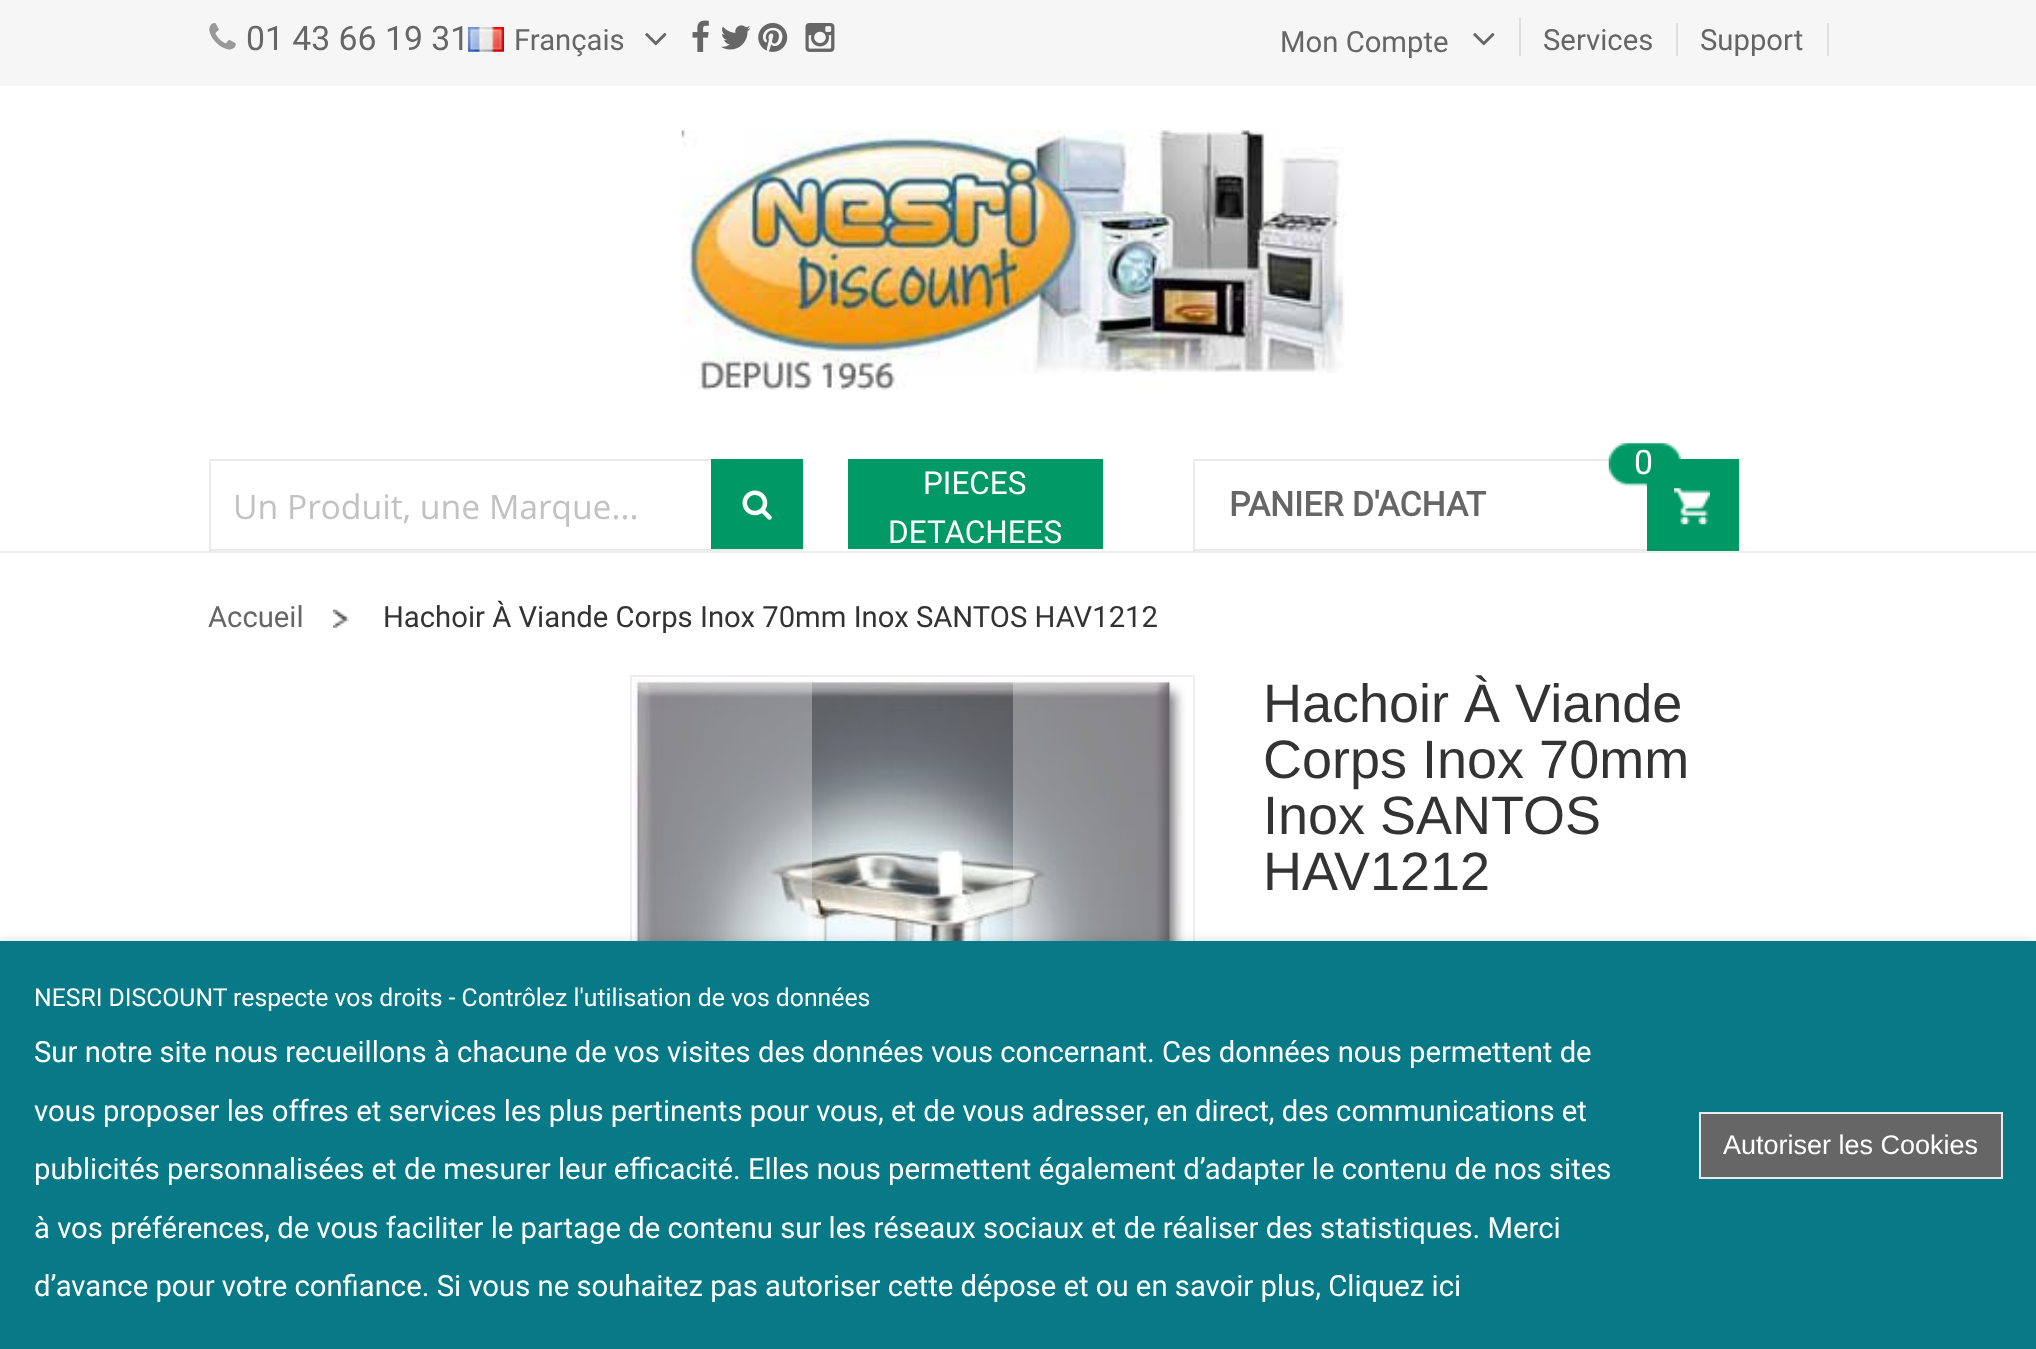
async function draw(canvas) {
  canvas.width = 2036
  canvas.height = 1349
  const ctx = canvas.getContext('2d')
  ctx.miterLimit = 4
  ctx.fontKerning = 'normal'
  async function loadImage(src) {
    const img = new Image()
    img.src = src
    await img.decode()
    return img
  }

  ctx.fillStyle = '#fff'
  ctx.fillRect(0, 0, 2036, 1349)
  ctx.fillStyle = '#f6f6f6'
  ctx.fillRect(0, 0, 2036, 86)
  ctx.drawImage(await loadImage('image0.png'), 209, 23, 27, 27)
  ctx.font = '33.75px Roboto'
  ctx.fillStyle = '#666'
  ctx.fillText('01 43 66 19 31', 246, 50)
  ctx.drawImage(await loadImage('image1.png'), 468, 27, 36, 25)
  ctx.font = '29.25px Roboto'
  ctx.fillText('Français', 514, 50)
  ctx.drawImage(await loadImage('image2.png'), 645, 33, 22, 13)
  ctx.drawImage(await loadImage('image3.png'), 692, 20, 17, 32)
  ctx.drawImage(await loadImage('image4.png'), 721, 25, 30, 25)
  ctx.drawImage(await loadImage('image5.png'), 758, 23, 30, 29)
  ctx.drawImage(await loadImage('image6.png'), 805, 23, 30, 29)
  ctx.fillText('Mon Compte', 1280, 52)
  ctx.fillStyle = '#e0e0e0'
  ctx.fillRect(1519, 18, 2, 38)
  ctx.drawImage(await loadImage('image2.png'), 1473, 33, 22, 13)
  ctx.fillStyle = '#666'
  ctx.fillText('Services', 1543, 50)
  ctx.fillStyle = '#e0e0e0'
  ctx.fillRect(1676, 23, 2, 33)
  ctx.fillStyle = '#666'
  ctx.fillText('Support', 1700, 50)
  ctx.fillStyle = '#e0e0e0'
  ctx.fillRect(1827, 23, 2, 33)
  ctx.drawImage(await loadImage('image7.png'), 681, 130, 664, 260)
  ctx.strokeStyle = '#eaeaea'
  ctx.lineWidth = 2
  ctx.strokeRect(210, 460, 592, 90)
  ctx.save()
  ctx.beginPath()
  ctx.rect(234, 482, 457, 45)
  ctx.clip()
  ctx.font = '33.75px Open Sans'
  ctx.fillStyle = '#c2c2c2'
  ctx.fillText('Un Produit, une Marque...', 233, 519)
  ctx.restore()
  ctx.fillStyle = '#096'
  ctx.fillRect(711, 459, 92, 90)
  ctx.drawImage(await loadImage('image8.png'), 742, 490, 30, 30)
  ctx.fillStyle = '#019966'
  ctx.fillRect(848, 459, 255, 90)
  ctx.font = '31.5px Roboto'
  ctx.fillStyle = '#fff'
  ctx.fillText('PIECES', 923, 494)
  ctx.fillText('DETACHEES', 888, 543)
  ctx.strokeRect(1194, 460, 544, 90)
  ctx.fillStyle = '#096'
  ctx.fillRect(1647, 459, 92, 92)
  ctx.drawImage(await loadImage('image9.png'), 1608, 443, 73, 44)
  ctx.font = '33.75px Roboto'
  ctx.fillStyle = '#fff'
  ctx.fillText('0', 1634, 474)
  ctx.font = 'bold 33.75px Roboto'
  ctx.fillStyle = '#666'
  ctx.fillText('PANIER D\'ACHAT', 1229, 516)
  ctx.drawImage(await loadImage('image10.png'), 1674, 488, 36, 37)
  ctx.fillStyle = '#eee'
  ctx.fillRect(0, 551, 2036, 2)
  ctx.font = '29.25px Roboto'
  ctx.fillStyle = '#666'
  ctx.fillText('Accueil', 208, 627)
  ctx.drawImage(await loadImage('image11.png'), 333, 609, 16, 19)
  ctx.fillStyle = '#333'
  ctx.fillText('Hachoir À Viande Corps Inox 70mm Inox SANTOS HAV1212', 383, 627)
  ctx.strokeStyle = '#eee'
  ctx.strokeRect(631, 676, 563, 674)
  ctx.drawImage(await loadImage('image12.png'), 633, 678, 553, 263)
  ctx.fillStyle = '#ffffff4d'
  ctx.fillRect(634, 678, 178, 263)
  ctx.fillRect(1013, 681, 171, 260)
  ctx.font = '54px Liberation Sans'
  ctx.fillStyle = '#333'
  ctx.fillText('Hachoir À Viande', 1263, 722)
  ctx.fillText('Corps Inox 70mm', 1263, 778)
  ctx.fillText('Inox SANTOS', 1263, 834)
  ctx.fillText('HAV1212', 1263, 890)
  ctx.fillStyle = '#1e20284d'
  ctx.filter = 'blur(7px)'
  ctx.beginPath()
  ctx.rect(-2, 945, 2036, 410)
  ctx.fill()
  ctx.filter = 'none'
  ctx.fillStyle = '#087986'
  ctx.fillRect(0, 941, 2036, 408)
  ctx.font = '24.75px Roboto'
  ctx.fillStyle = '#fff'
  ctx.fillText('NESRI DISCOUNT respecte vos droits - Contrôlez l\'utilisation de vos données', 34, 1006)
  ctx.font = '29.25px Roboto'
  ctx.fillText('Sur notre site nous recueillons à chacune de vos visites des données vous concernant. Ces données nous permettent de', 34, 1062)
  ctx.fillText('vous proposer les offres et services les plus pertinents pour vous, et de vous adresser, en direct, des communications et', 34, 1121)
  ctx.fillText('publicités personnalisées et de mesurer leur efficacité. Elles nous permettent également d’adapter le contenu de nos sites', 34, 1179)
  ctx.fillText('à vos préférences, de vous faciliter le partage de contenu sur les réseaux sociaux et de réaliser des statistiques. Merci', 34, 1238)
  ctx.fillText('d’avance pour votre confiance. Si vous ne souhaitez pas autoriser cette dépose et ou en savoir plus, Cliquez ici', 34, 1296)
  ctx.fillStyle = '#666'
  ctx.beginPath()
  ctx.rect(1700, 1113, 302, 65)
  ctx.fill()
  ctx.strokeStyle = '#eaeaea'
  ctx.stroke()
  ctx.font = '27px Liberation Sans'
  ctx.fillStyle = '#fff'
  ctx.fillText('Autoriser les Cookies', 1723, 1154)
}

draw(document.querySelector('canvas'))
